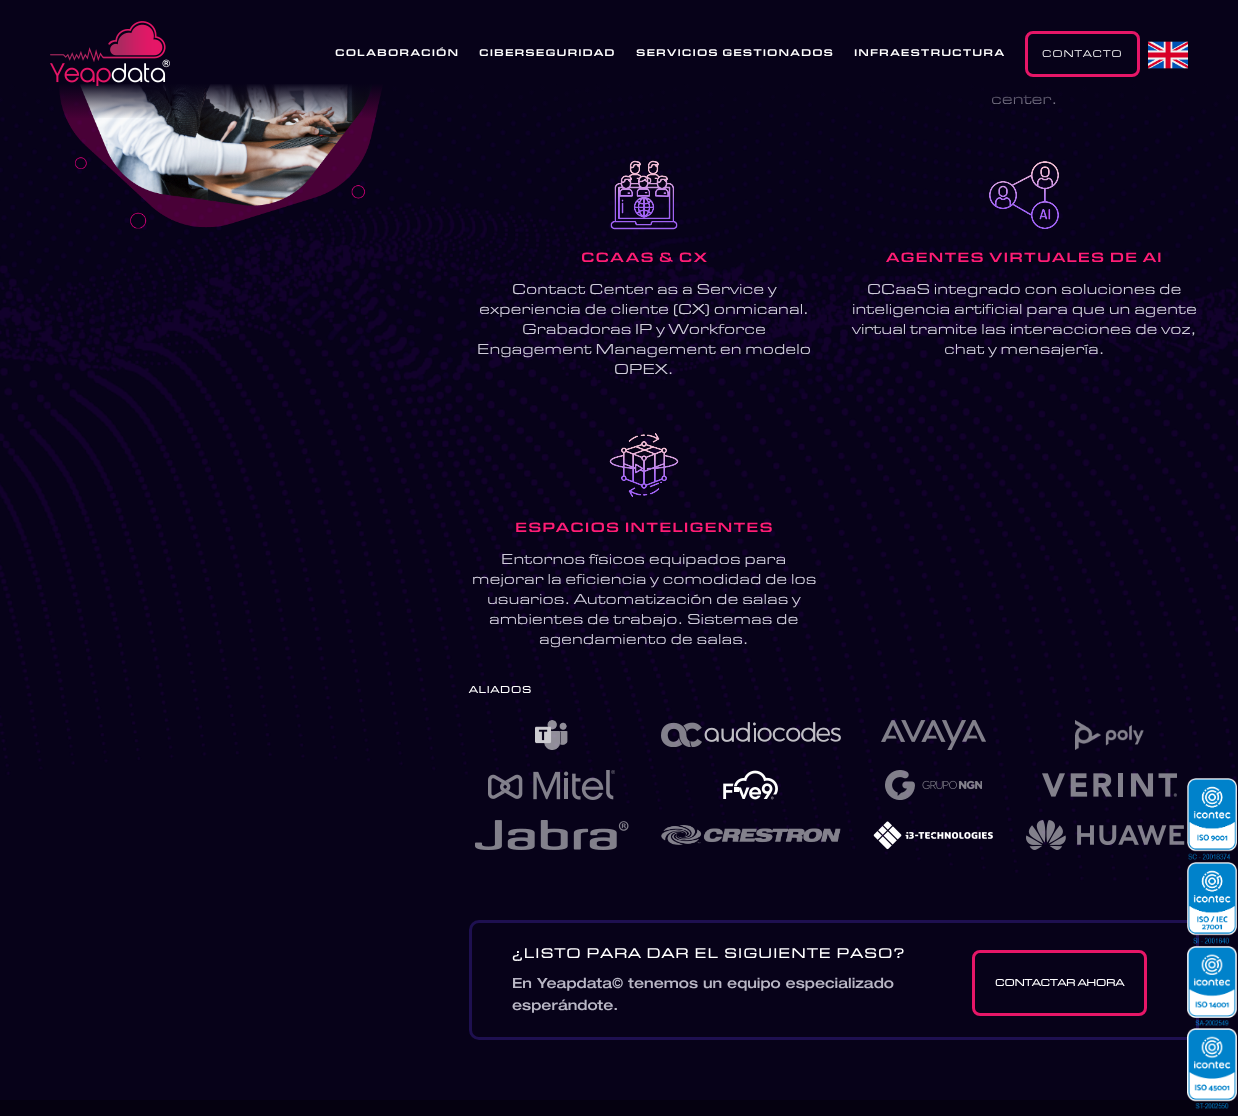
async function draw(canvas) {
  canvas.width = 1238
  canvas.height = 1116
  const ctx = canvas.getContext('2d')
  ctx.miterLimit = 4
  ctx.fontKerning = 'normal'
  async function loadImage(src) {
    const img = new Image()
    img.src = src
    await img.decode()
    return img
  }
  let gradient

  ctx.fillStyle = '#070219'
  ctx.fillRect(0, 0, 1238, 1116)
  ctx.drawImage(await loadImage('image6.png'), 0, 84, 1238, 797)
  ctx.drawImage(await loadImage('image7.png'), 59, 84, 324, 145)
  ctx.font = '15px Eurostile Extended'
  ctx.fillStyle = '#d0cddb'
  ctx.fillText('center.', 991, 104)
  gradient = ctx.createLinearGradient(619, 0, 619, 119)
  gradient.addColorStop(0.7, '#070219')
  gradient.addColorStop(1, '#07021900')
  ctx.fillStyle = gradient
  ctx.fillRect(0, 84, 1231, 34)
  ctx.drawImage(await loadImage('image0.png'), 50, 21, 120, 65)
  ctx.letterSpacing = '1px'
  ctx.font = '500 10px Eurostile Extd'
  ctx.fillStyle = '#fff'
  ctx.fillText('COLABORACIÓN', 335, 56)
  ctx.fillText('CIBERSEGURIDAD', 479, 56)
  ctx.fillText('SERVICIOS GESTIONADOS', 636, 56)
  ctx.fillText('INFRAESTRUCTURA', 854, 56)
  ctx.beginPath()
  ctx.roundRect(1026.5, 32.5, 112, 43, 6.5)
  ctx.strokeStyle = '#e61667'
  ctx.lineWidth = 3
  ctx.stroke()
  ctx.font = '10px Eurostile Extended'
  ctx.fillText('CONTACTO', 1042, 57)
  ctx.drawImage(await loadImage('image1.png'), 1148, 41, 40, 28)
  ctx.drawImage(await loadImage('image2.png'), 1187, 778, 50, 82)
  ctx.beginPath()
  ctx.roundRect(470.5, 921.5, 727, 117, 8.5)
  ctx.strokeStyle = '#1e1050'
  ctx.stroke()
  ctx.drawImage(await loadImage('image3.png'), 1187, 862, 50, 82)
  ctx.drawImage(await loadImage('image4.png'), 1187, 946, 50, 80)
  ctx.fillStyle = '#050110'
  ctx.fillRect(0, 1100, 1238, 16)
  ctx.drawImage(await loadImage('image5.png'), 1187, 1028, 50, 81)
  ctx.drawImage(await loadImage('image8.png'), 610, 160, 68, 70)
  ctx.font = '500 14px Eurostile Extd'
  ctx.fillStyle = '#ff1d75'
  ctx.fillText('CCAAS & CX', 581, 262)
  ctx.letterSpacing = '0px'
  ctx.font = '15px Eurostile Extended'
  ctx.fillStyle = '#d0cddb'
  ctx.fillText('Contact Center as a Service y', 512, 294)
  ctx.fillText('experiencia de cliente (CX) onmicanal.', 479, 314)
  ctx.fillText('Grabadoras IP y Workforce', 522, 334)
  ctx.fillText('Engagement Management en modelo', 477, 354)
  ctx.fillText('OPEX.', 614, 374)
  ctx.drawImage(await loadImage('image9.png'), 989, 161, 70, 68)
  ctx.letterSpacing = '1px'
  ctx.font = '500 14px Eurostile Extd'
  ctx.fillStyle = '#ff1d75'
  ctx.fillText('AGENTES VIRTUALES DE AI', 886, 262)
  ctx.letterSpacing = '0px'
  ctx.font = '15px Eurostile Extended'
  ctx.fillStyle = '#d0cddb'
  ctx.fillText('CCaaS integrado con soluciones de', 867, 294)
  ctx.fillText('inteligencia artificial para que un agente', 852, 314)
  ctx.fillText('virtual tramite las interacciones de voz,', 852, 334)
  ctx.fillText('chat y mensajería.', 944, 354)
  ctx.drawImage(await loadImage('image10.png'), 609, 433, 70, 64)
  ctx.letterSpacing = '1px'
  ctx.font = '500 14px Eurostile Extd'
  ctx.fillStyle = '#ff1d75'
  ctx.fillText('ESPACIOS INTELIGENTES', 515, 532)
  ctx.letterSpacing = '0px'
  ctx.font = '15px Eurostile Extended'
  ctx.fillStyle = '#d0cddb'
  ctx.fillText('Entornos físicos equipados para', 501, 564)
  ctx.fillText('mejorar la eficiencia y comodidad de los', 472, 584)
  ctx.fillText('usuarios. Automatización de salas y', 487, 604)
  ctx.fillText('ambientes de trabajo. Sistemas de', 489, 624)
  ctx.fillText('agendamiento de salas.', 539, 644)
  ctx.letterSpacing = '1px'
  ctx.font = 'bold 10px Eurostile Extended'
  ctx.fillStyle = '#fff'
  ctx.fillText('ALIADOS', 469, 693)
  ctx.drawImage(await loadImage('image11.png'), 535, 720, 33, 30)
  ctx.drawImage(await loadImage('image12.png'), 661, 722, 180, 25)
  ctx.drawImage(await loadImage('image13.png'), 881, 720, 105, 30)
  ctx.drawImage(await loadImage('image14.png'), 1075, 720, 69, 30)
  ctx.drawImage(await loadImage('image15.png'), 488, 770, 127, 30)
  ctx.drawImage(await loadImage('image16.png'), 723, 770, 55, 30)
  ctx.drawImage(await loadImage('image17.png'), 885, 770, 97, 30)
  ctx.drawImage(await loadImage('image18.png'), 1042, 773, 135, 24)
  ctx.drawImage(await loadImage('image19.png'), 475, 820, 154, 30)
  ctx.drawImage(await loadImage('image20.png'), 661, 825, 180, 20)
  ctx.drawImage(await loadImage('image21.png'), 873, 821, 120, 29)
  ctx.drawImage(await loadImage('image22.png'), 1026, 820, 159, 30)
  ctx.letterSpacing = '1.4px'
  ctx.font = 'bold 14px Eurostile Extended'
  ctx.fillText('¿LISTO PARA DAR EL SIGUIENTE PASO?', 512, 958)
  ctx.letterSpacing = '0px'
  ctx.font = '500 14px Helvetica Neue'
  ctx.fillStyle = '#b9b7c5'
  ctx.fillText('En Yeapdata© tenemos un equipo especializado', 512, 988)
  ctx.fillText('esperándote.', 512, 1010)
  ctx.beginPath()
  ctx.roundRect(973.5, 951.5, 172, 63, 6.5)
  ctx.strokeStyle = '#e61667'
  ctx.stroke()
  ctx.font = 'bold 10px Eurostile Extended'
  ctx.fillStyle = '#fff'
  ctx.fillText('CONTACTAR AHORA', 995, 986)
}

draw(document.querySelector('canvas'))
